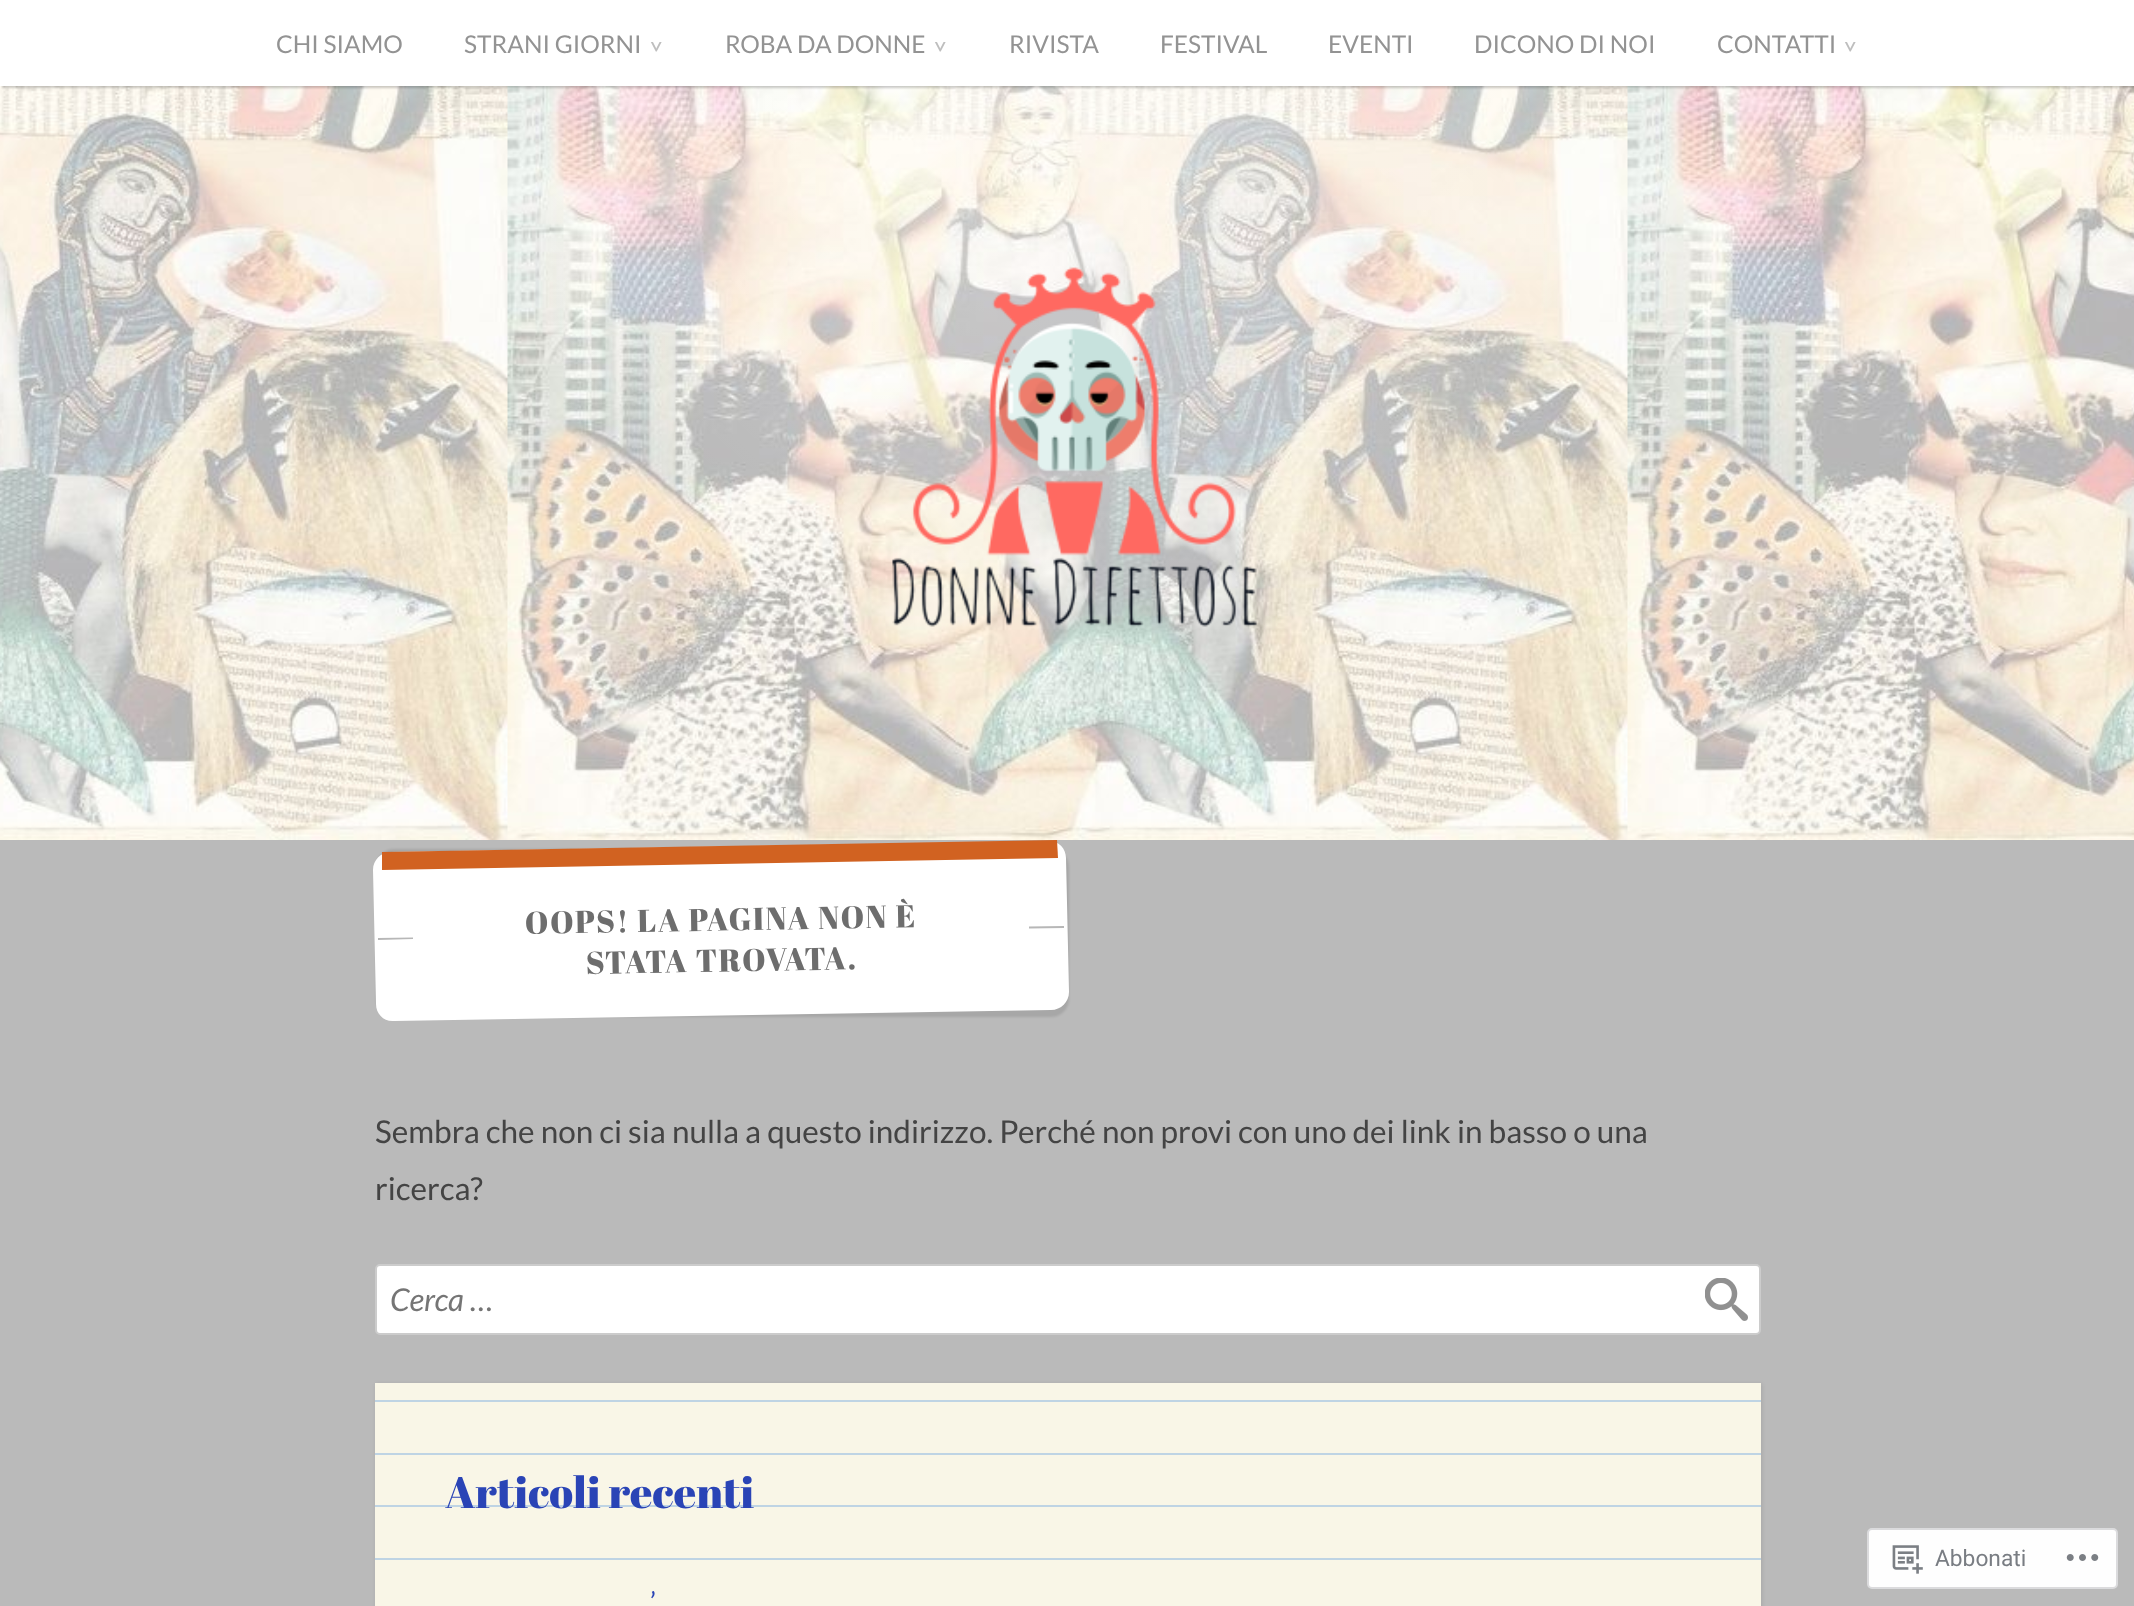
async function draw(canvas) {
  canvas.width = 2134
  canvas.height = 1606
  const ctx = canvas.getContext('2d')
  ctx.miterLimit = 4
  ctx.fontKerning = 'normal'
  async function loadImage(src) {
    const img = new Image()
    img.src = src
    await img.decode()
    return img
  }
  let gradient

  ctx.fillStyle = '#bababa'
  ctx.fillRect(0, 0, 2134, 1606)
  ctx.drawImage(await loadImage('image0.png'), 0, 86, 2134, 754)
  gradient = ctx.createRadialGradient(1068, 70, 0, 1068, 70, 1237)
  gradient.addColorStop(0, '#ffffff59')
  gradient.addColorStop(0.5, '#ffffff00')
  gradient.addColorStop(1, '#ffffff00')
  ctx.fillStyle = gradient
  ctx.fillRect(551, 86, 1036, 543)
  ctx.fillStyle = '#00000033'
  ctx.filter = 'blur(1px)'
  ctx.beginPath()
  ctx.rect(2, 2, 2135, 86)
  ctx.fill()
  ctx.filter = 'none'
  ctx.fillStyle = '#fff'
  ctx.fillRect(0, 0, 2134, 86)
  ctx.font = '24.5px Lato'
  ctx.fillStyle = '#939393'
  ctx.fillText('CHI SIAMO', 276, 53)
  ctx.fillText('STRANI GIORNI', 464, 53)
  ctx.fillStyle = '#bebebe'
  ctx.save()
  ctx.translate(648, 39)
  ctx.rotate(90 * Math.PI / 180)
  ctx.fillText('>', 0, 0)
  ctx.restore()
  ctx.fillStyle = '#939393'
  ctx.fillText('ROBA DA DONNE', 725, 53)
  ctx.fillStyle = '#bebebe'
  ctx.save()
  ctx.translate(932, 39)
  ctx.rotate(90 * Math.PI / 180)
  ctx.fillText('>', 0, 0)
  ctx.restore()
  ctx.fillStyle = '#939393'
  ctx.fillText('RIVISTA', 1009, 53)
  ctx.fillText('FESTIVAL', 1160, 53)
  ctx.fillText('EVENTI', 1328, 53)
  ctx.fillText('DICONO DI NOI', 1474, 53)
  ctx.fillText('CONTATTI', 1717, 53)
  ctx.fillStyle = '#bebebe'
  ctx.save()
  ctx.translate(1842, 39)
  ctx.rotate(90 * Math.PI / 180)
  ctx.fillText('>', 0, 0)
  ctx.restore()
  ctx.drawImage(await loadImage('image1.png'), 892, 267, 365, 360)
  ctx.fillStyle = '#0000001a'
  ctx.filter = 'blur(1px)'
  ctx.beginPath()
  ctx.roundRect(376, 849, 693, 168, 18)
  ctx.fill()
  ctx.filter = 'none'
  ctx.fillStyle = '#fff'
  ctx.beginPath()
  ctx.moveTo(391, 852)
  ctx.lineTo(1048, 841)
  ctx.bezierCurveTo(1058, 840, 1066, 848, 1066, 858)
  ctx.lineTo(1069, 992)
  ctx.bezierCurveTo(1069, 1002, 1061, 1010, 1051, 1010)
  ctx.lineTo(394, 1021)
  ctx.bezierCurveTo(384, 1022, 376, 1014, 376, 1004)
  ctx.lineTo(373, 870)
  ctx.bezierCurveTo(373, 860, 381, 852, 391, 852)
  ctx.closePath()
  ctx.fill()
  ctx.fillStyle = '#d16221'
  ctx.beginPath()
  ctx.moveTo(382, 852)
  ctx.lineTo(1057, 840)
  ctx.lineTo(1058, 858)
  ctx.lineTo(382, 870)
  ctx.closePath()
  ctx.fill()
  ctx.letterSpacing = '1.6px'
  ctx.font = '31.5px Abril Fatface'
  ctx.fillStyle = '#6d6d6d'
  ctx.save()
  ctx.translate(525, 934)
  ctx.rotate(-1 * Math.PI / 180)
  ctx.fillText('OOPS! LA PAGINA NON È', 0, 0)
  ctx.restore()
  ctx.fillStyle = '#b7b7b7'
  ctx.beginPath()
  ctx.moveTo(1029, 926.5)
  ctx.lineTo(1064, 926)
  ctx.lineTo(1064, 928)
  ctx.lineTo(1029, 928.5)
  ctx.closePath()
  ctx.fill()
  ctx.beginPath()
  ctx.moveTo(378, 938)
  ctx.lineTo(413, 937.5)
  ctx.lineTo(413, 939)
  ctx.lineTo(378, 940)
  ctx.closePath()
  ctx.fill()
  ctx.fillStyle = '#6d6d6d'
  ctx.save()
  ctx.translate(586, 974)
  ctx.rotate(-1 * Math.PI / 180)
  ctx.fillText('STATA TROVATA.', 0, 0)
  ctx.restore()
  ctx.letterSpacing = '0px'
  ctx.font = '31.5px Lato'
  ctx.fillStyle = '#444'
  ctx.fillText('Sembra che non ci sia nulla a questo indirizzo. Perché non provi con uno dei link in basso o una', 375, 1143)
  ctx.fillText('ricerca?', 375, 1200)
  ctx.fillStyle = '#fff'
  ctx.beginPath()
  ctx.roundRect(376, 1265, 1384, 69, 4)
  ctx.fill()
  ctx.strokeStyle = '#ccc'
  ctx.lineWidth = 2
  ctx.stroke()
  ctx.font = 'italic 31.5px Lato'
  ctx.fillStyle = '#757575'
  ctx.fillText('Cerca …', 390, 1311)
  ctx.drawImage(await loadImage('image2.png'), 1705, 1278, 43, 43)
  ctx.fillStyle = '#0000001a'
  ctx.filter = 'blur(2px)'
  ctx.beginPath()
  ctx.rect(376, 1384, 1386, 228)
  ctx.fill()
  ctx.filter = 'none'
  ctx.fillStyle = '#f9f6e7'
  ctx.fillRect(375, 1383, 1386, 223)
  ctx.fillStyle = '#bfd4e4'
  ctx.fillRect(375, 1400, 1386, 2)
  ctx.fillRect(375, 1453, 1386, 2)
  ctx.fillRect(375, 1505, 1386, 2)
  ctx.fillRect(375, 1558, 1386, 2)
  ctx.font = '43.75px Abril Fatface'
  ctx.fillStyle = '#2a44b6'
  ctx.fillText('Articoli recenti', 445, 1508)
  ctx.font = '28px Lato'
  ctx.fillText('’', 650, 1612)
  ctx.fillStyle = '#fefefe'
  ctx.beginPath()
  ctx.roundRect(1868, 1529, 249, 59, 4)
  ctx.fill()
  ctx.strokeStyle = '#dbdbdd'
  ctx.stroke()
  ctx.drawImage(await loadImage('image3.png'), 1892, 1545, 31, 29)
  ctx.font = '22.75px Roboto'
  ctx.fillStyle = '#797d83'
  ctx.fillText('Abbonati', 1935, 1566)
  ctx.drawImage(await loadImage('image4.png'), 2066, 1554, 33, 7)
}

draw(document.querySelector('canvas'))
